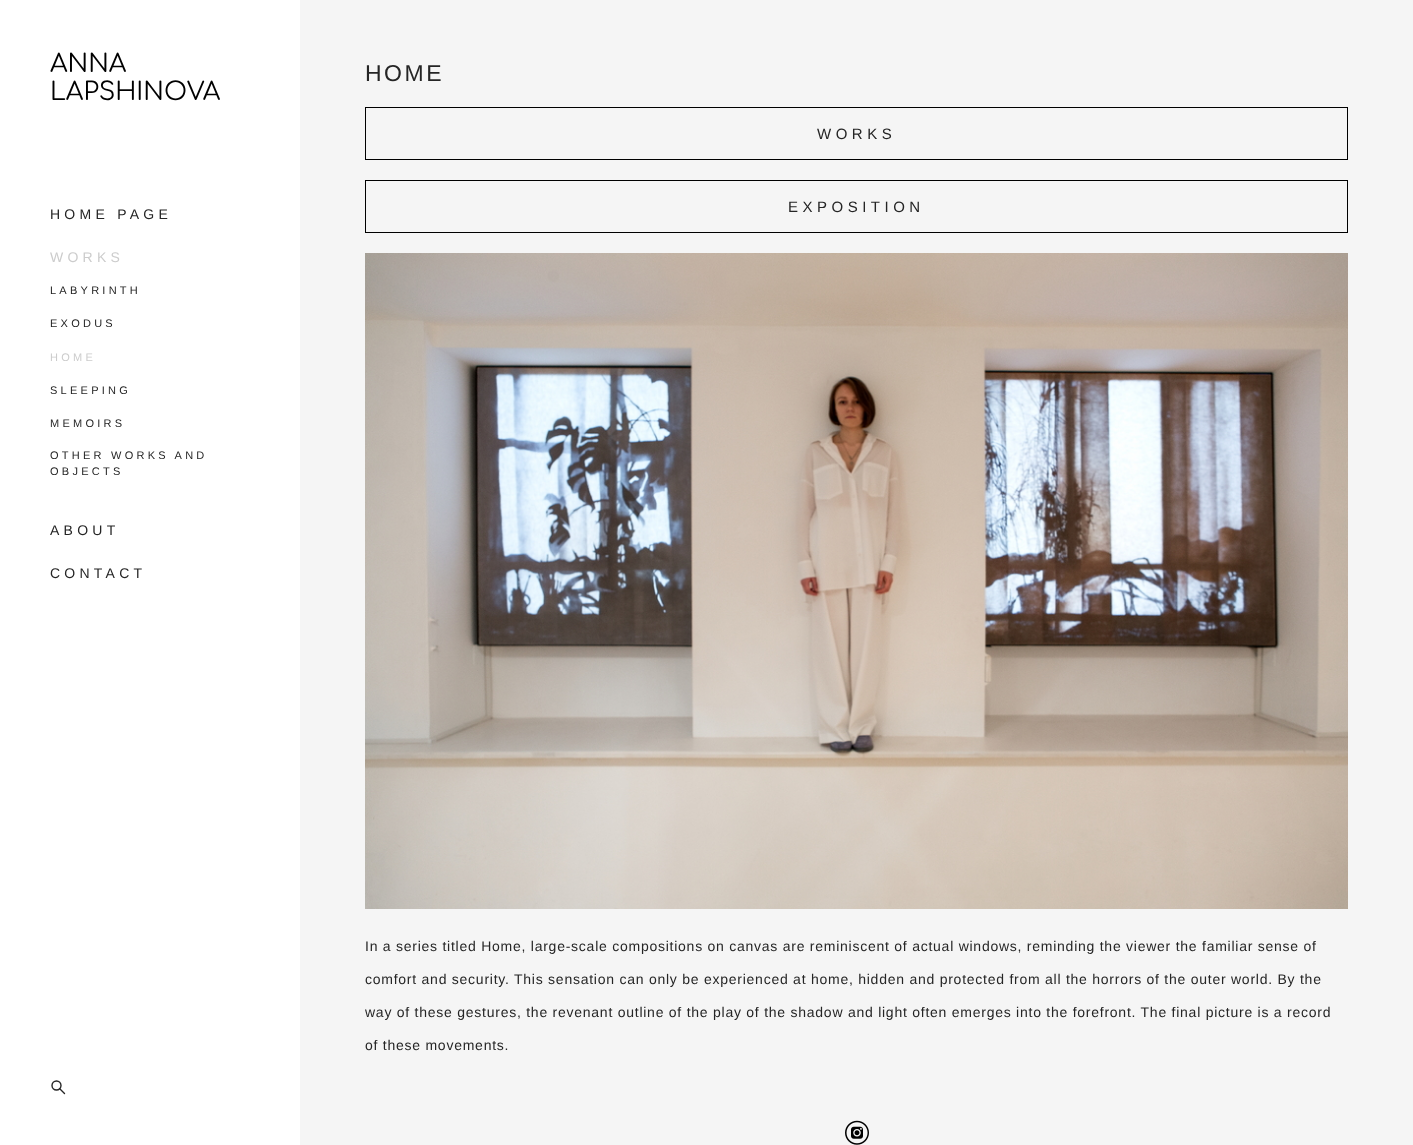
async function draw(canvas) {
  canvas.width = 1413
  canvas.height = 1145
  const ctx = canvas.getContext('2d')
  ctx.miterLimit = 4
  ctx.fontKerning = 'normal'
  async function loadImage(src) {
    const img = new Image()
    img.src = src
    await img.decode()
    return img
  }

  ctx.fillStyle = '#f5f5f5'
  ctx.fillRect(0, 0, 1413, 1145)
  ctx.fillStyle = '#fff'
  ctx.fillRect(0, 0, 300, 1145)
  ctx.font = '25px Comfortaa'
  ctx.fillStyle = '#000'
  ctx.fillText('ANNA', 50, 72)
  ctx.fillText('LAPSHINOVA', 50, 100)
  ctx.letterSpacing = '4.25px'
  ctx.font = '14px Liberation Sans'
  ctx.fillStyle = '#252525'
  ctx.fillText('HOME PAGE', 50, 219)
  ctx.fillStyle = '#ccc'
  ctx.fillText('WORKS', 50, 262)
  ctx.letterSpacing = '3.25px'
  ctx.font = '11px Liberation Sans'
  ctx.fillStyle = '#252525'
  ctx.fillText('LABYRINTH', 50, 294)
  ctx.fillText('EXODUS', 50, 327)
  ctx.fillStyle = '#ccc'
  ctx.fillText('HOME', 50, 361)
  ctx.fillStyle = '#252525'
  ctx.fillText('SLEEPING', 50, 394)
  ctx.fillText('MEMOIRS', 50, 427)
  ctx.fillText('OTHER WORKS AND', 50, 459)
  ctx.fillText('OBJECTS', 50, 475)
  ctx.letterSpacing = '4.25px'
  ctx.font = '14px Liberation Sans'
  ctx.fillText('ABOUT', 50, 535)
  ctx.fillText('CONTACT', 50, 578)
  ctx.beginPath()
  ctx.arc(56.5, 1085.5, 4.5, 0, 2 * Math.PI)
  ctx.strokeStyle = '#252525'
  ctx.lineWidth = 1.4
  ctx.stroke()
  ctx.beginPath()
  ctx.moveTo(59.5, 1088.5)
  ctx.lineTo(64.5, 1093.5)
  ctx.lineCap = 'round'
  ctx.lineJoin = 'round'
  ctx.stroke()
  ctx.letterSpacing = '2.5px'
  ctx.font = '23px Liberation Sans'
  ctx.fillText('HOME', 365, 81)
  ctx.strokeStyle = '#000'
  ctx.lineWidth = 1
  ctx.lineJoin = 'miter'
  ctx.strokeRect(365.5, 107.5, 982, 52)
  ctx.letterSpacing = '4.5px'
  ctx.font = '15px Liberation Sans'
  ctx.fillText('WORKS', 817, 139)
  ctx.strokeRect(365.5, 180.5, 982, 52)
  ctx.fillText('EXPOSITION', 788, 212)
  ctx.drawImage(await loadImage('image0.png'), 365, 253, 983, 656)
  ctx.letterSpacing = '0.75px'
  ctx.font = '14px Liberation Sans'
  ctx.fillText('In a series titled Home, large-scale compositions on canvas are reminiscent of actual windows, reminding the viewer the familiar sense of', 365, 951)
  ctx.fillText('comfort and security. This sensation can only be experienced at home, hidden and protected from all the horrors of the outer world. By the', 365, 984)
  ctx.fillText('way of these gestures, the revenant outline of the play of the shadow and light often emerges into the forefront. The final picture is a record', 365, 1017)
  ctx.fillText('of these movements.', 365, 1050)
  ctx.drawImage(await loadImage('image1.png'), 845, 1120, 24, 25)
}

draw(document.querySelector('canvas'))
